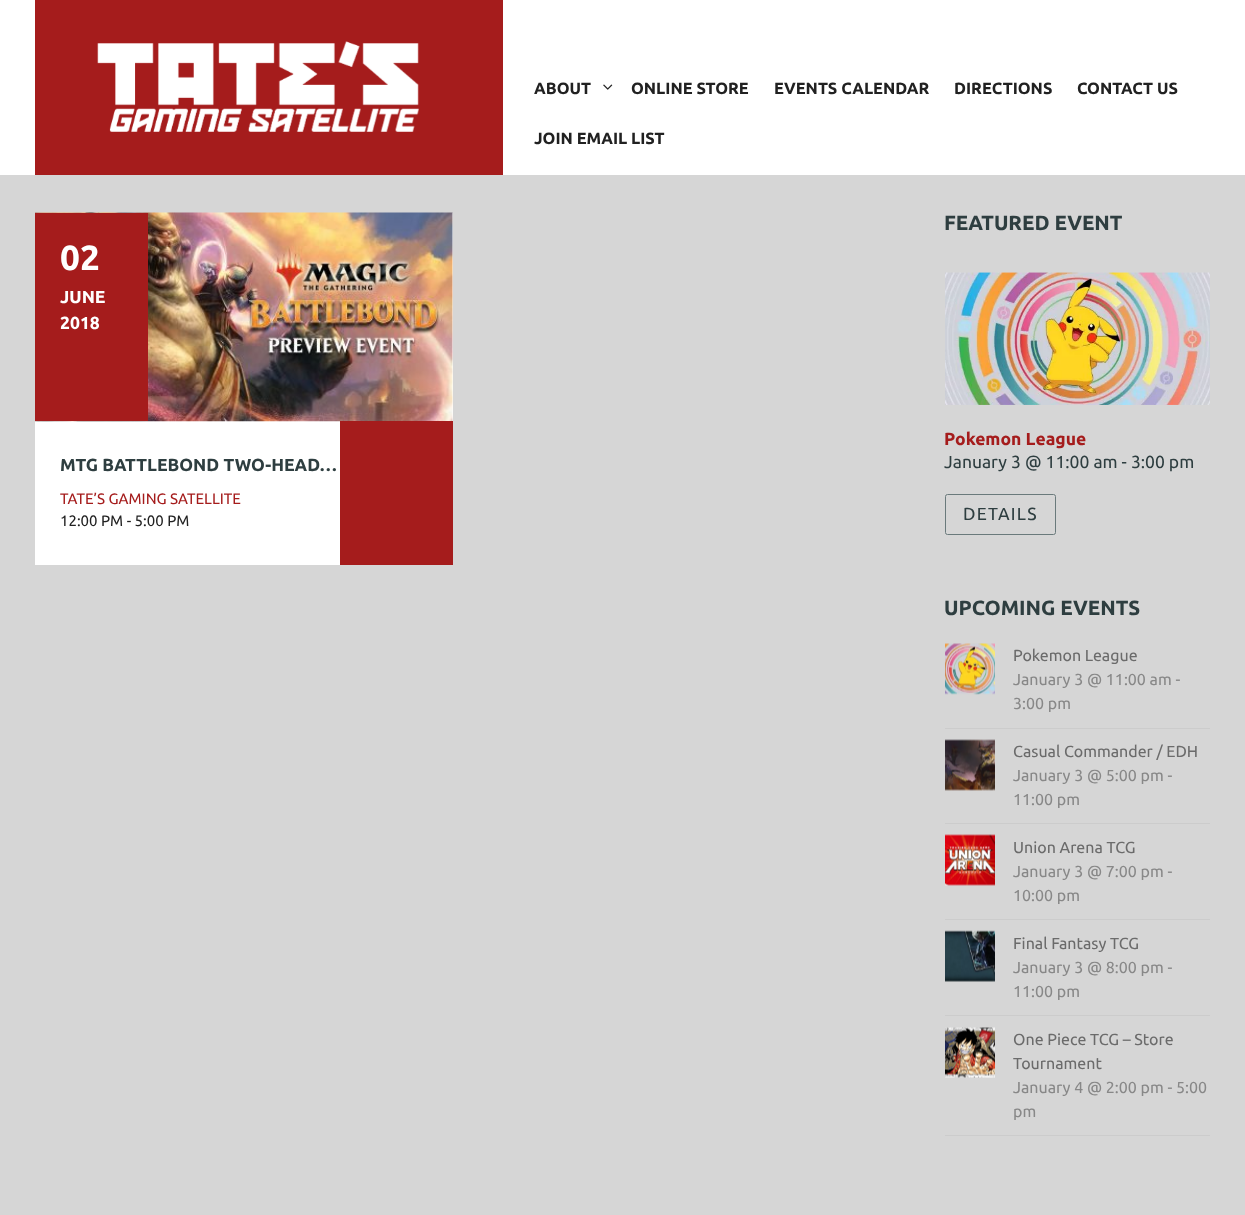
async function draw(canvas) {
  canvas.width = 1245
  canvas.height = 1215
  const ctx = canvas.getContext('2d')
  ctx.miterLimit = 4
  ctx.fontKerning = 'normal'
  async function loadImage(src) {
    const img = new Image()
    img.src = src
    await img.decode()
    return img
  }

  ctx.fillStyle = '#d6d6d6'
  ctx.fillRect(0, 0, 1245, 1215)
  ctx.fillStyle = '#fff'
  ctx.fillRect(0, 0, 1245, 175)
  ctx.fillStyle = '#a51c1c'
  ctx.fillRect(35, 0, 468, 175)
  ctx.drawImage(await loadImage('image0.png'), 97, 41, 322, 91)
  ctx.font = 'bold 16.25px Ubuntu'
  ctx.fillStyle = '#212121'
  ctx.fillText('ABOUT', 534, 94)
  ctx.drawImage(await loadImage('image1.png'), 603, 84, 10, 6)
  ctx.fillText('ONLINE STORE', 631, 94)
  ctx.fillText('EVENTS CALENDAR', 774, 94)
  ctx.fillText('DIRECTIONS', 954, 94)
  ctx.fillText('CONTACT US', 1077, 94)
  ctx.fillText('JOIN EMAIL LIST', 534, 144)
  ctx.fillStyle = '#fff'
  ctx.fillRect(35, 213, 418, 352)
  ctx.drawImage(await loadImage('image2.png'), 35, 212, 418, 210)
  ctx.fillStyle = '#a51c1c'
  ctx.fillRect(35, 213, 113, 208)
  ctx.font = 'bold 35px Ubuntu'
  ctx.fillStyle = '#fff'
  ctx.fillText('02', 60, 270)
  ctx.font = 'bold 17.5px Ubuntu'
  ctx.fillText('JUNE', 60, 303)
  ctx.fillText('2018', 60, 329)
  ctx.fillStyle = '#2e3e40'
  ctx.fillText('MTG BATTLEBOND TWO-HEAD…', 60, 471)
  ctx.font = '15px Ubuntu'
  ctx.fillStyle = '#a51c1c'
  ctx.fillText('TATE’S GAMING SATELLITE', 60, 504)
  ctx.fillStyle = '#212121'
  ctx.fillText('12:00 PM - 5:00 PM', 60, 526)
  ctx.fillStyle = '#a51c1c'
  ctx.fillRect(340, 421, 113, 144)
  ctx.font = 'bold 20.5px Ubuntu'
  ctx.fillStyle = '#2e3e40'
  ctx.fillText('FEATURED EVENT', 944, 230)
  ctx.drawImage(await loadImage('image3.png'), 945, 272, 265, 133)
  ctx.font = 'bold 17.5px Ubuntu'
  ctx.fillStyle = '#a51c1c'
  ctx.fillText('Pokemon League', 944, 445)
  ctx.font = '17.5px Ubuntu'
  ctx.fillStyle = '#2e3e40'
  ctx.fillText('January 3 @ 11:00 am - 3:00 pm', 944, 468)
  ctx.beginPath()
  ctx.roundRect(945.5, 494.5, 110, 40, 2)
  ctx.strokeStyle = '#6a7a7c'
  ctx.stroke()
  ctx.letterSpacing = '1.25px'
  ctx.fillText('DETAILS', 963, 520)
  ctx.letterSpacing = '0px'
  ctx.font = 'bold 20.5px Ubuntu'
  ctx.fillText('UPCOMING EVENTS', 944, 615)
  ctx.fillStyle = '#ccc'
  ctx.fillRect(945, 728, 265, 1)
  ctx.drawImage(await loadImage('image4.png'), 945, 643, 50, 52)
  ctx.font = '16px Ubuntu'
  ctx.fillStyle = '#6b6b6b'
  ctx.fillText('Pokemon League', 1013, 661)
  ctx.fillStyle = '#888'
  ctx.fillText('January 3 @ 11:00 am -', 1013, 685)
  ctx.fillText('3:00 pm', 1013, 709)
  ctx.fillStyle = '#ccc'
  ctx.fillRect(945, 823, 265, 1)
  ctx.drawImage(await loadImage('image5.png'), 945, 739, 50, 52)
  ctx.fillStyle = '#6b6b6b'
  ctx.fillText('Casual Commander / EDH', 1013, 757)
  ctx.fillStyle = '#888'
  ctx.fillText('January 3 @ 5:00 pm -', 1013, 781)
  ctx.fillText('11:00 pm', 1013, 805)
  ctx.fillStyle = '#ccc'
  ctx.fillRect(945, 919, 265, 1)
  ctx.drawImage(await loadImage('image6.png'), 945, 834, 50, 52)
  ctx.fillStyle = '#6b6b6b'
  ctx.fillText('Union Arena TCG', 1013, 853)
  ctx.fillStyle = '#888'
  ctx.fillText('January 3 @ 7:00 pm -', 1013, 877)
  ctx.fillText('10:00 pm', 1013, 901)
  ctx.fillStyle = '#ccc'
  ctx.fillRect(945, 1015, 265, 1)
  ctx.drawImage(await loadImage('image7.png'), 945, 930, 50, 52)
  ctx.fillStyle = '#6b6b6b'
  ctx.fillText('Final Fantasy TCG', 1013, 949)
  ctx.fillStyle = '#888'
  ctx.fillText('January 3 @ 8:00 pm -', 1013, 973)
  ctx.fillText('11:00 pm', 1013, 997)
  ctx.fillStyle = '#ccc'
  ctx.fillRect(945, 1135, 265, 1)
  ctx.drawImage(await loadImage('image8.png'), 945, 1027, 50, 51)
  ctx.fillStyle = '#6b6b6b'
  ctx.fillText('One Piece TCG – Store', 1013, 1045)
  ctx.fillText('Tournament', 1013, 1069)
  ctx.fillStyle = '#888'
  ctx.fillText('January 4 @ 2:00 pm - 5:00', 1013, 1093)
  ctx.fillText('pm', 1013, 1117)
}

draw(document.querySelector('canvas'))
